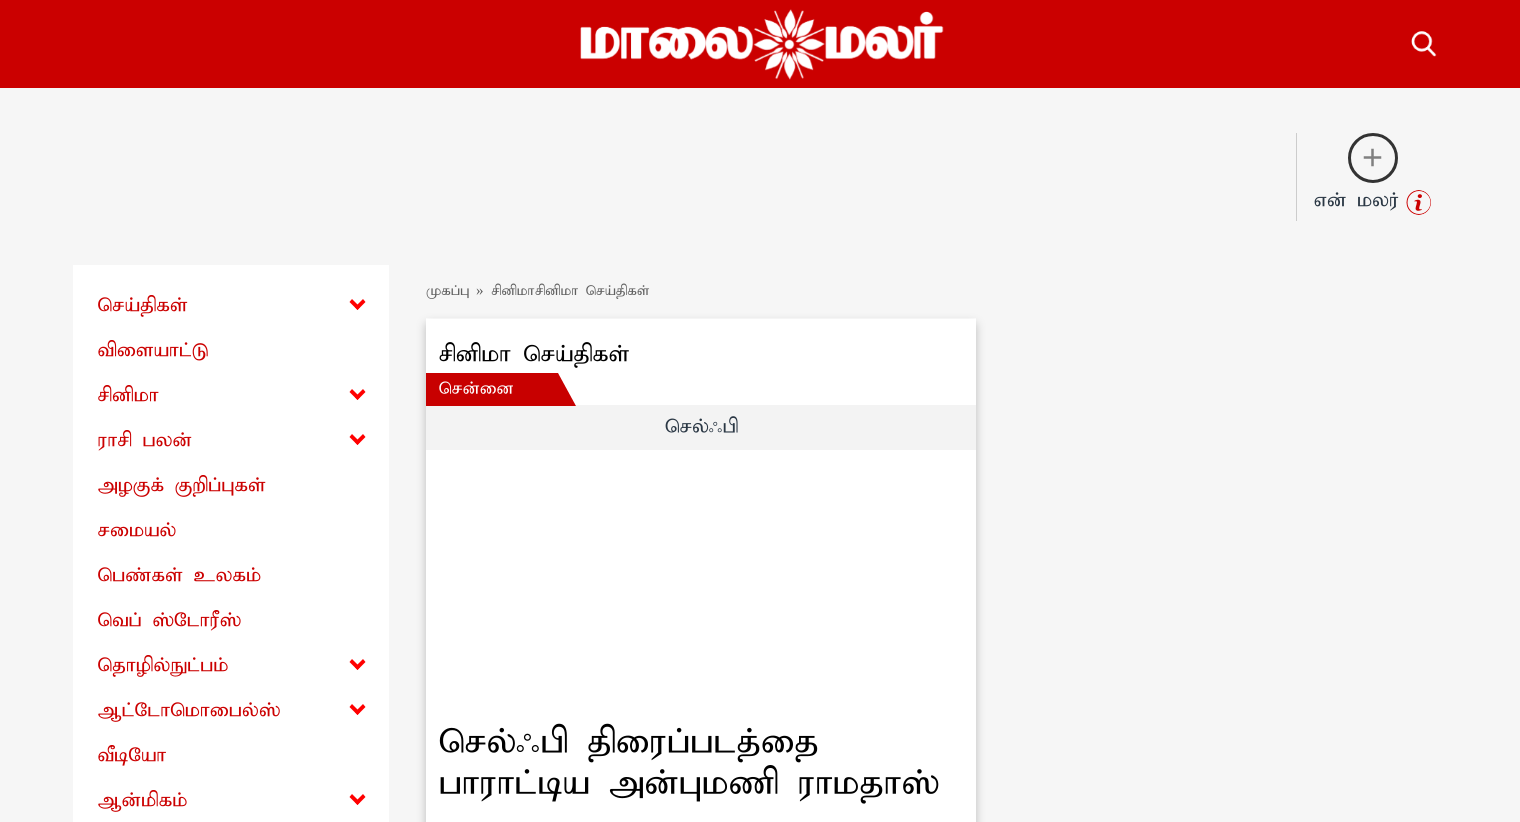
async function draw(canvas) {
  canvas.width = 1520
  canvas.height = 822
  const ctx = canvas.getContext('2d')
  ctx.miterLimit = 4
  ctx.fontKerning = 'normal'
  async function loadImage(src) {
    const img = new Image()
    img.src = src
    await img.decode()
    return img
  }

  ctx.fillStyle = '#f6f6f6'
  ctx.fillRect(0, 0, 1520, 822)
  ctx.fillStyle = '#cb0000'
  ctx.fillRect(0, 0, 1520, 88)
  ctx.drawImage(await loadImage('image0.png'), 580, 9, 364, 71)
  ctx.drawImage(await loadImage('image1.png'), 1411, 31, 26, 26)
  ctx.fillStyle = '#ccc'
  ctx.fillRect(1296, 133, 1, 88)
  ctx.beginPath()
  ctx.arc(1373, 158, 23.5, 0, 2 * Math.PI)
  ctx.strokeStyle = '#333'
  ctx.lineWidth = 3
  ctx.stroke()
  ctx.drawImage(await loadImage('image2.png'), 1363, 148, 19, 19)
  ctx.drawImage(await loadImage('image3.png'), 1314, 192, 85, 19)
  ctx.drawImage(await loadImage('image4.png'), 1406, 190, 25, 25)
  ctx.fillStyle = '#fff'
  ctx.fillRect(73, 265, 316, 557)
  ctx.drawImage(await loadImage('image5.png'), 98, 295, 90, 22)
  ctx.fillStyle = '#f00'
  ctx.beginPath()
  ctx.moveTo(363, 299)
  ctx.lineTo(365.5, 302)
  ctx.lineTo(357.5, 310)
  ctx.lineTo(355, 307)
  ctx.closePath()
  ctx.fill()
  ctx.beginPath()
  ctx.moveTo(352, 299)
  ctx.lineTo(360, 307)
  ctx.lineTo(357.5, 310)
  ctx.lineTo(349.5, 302)
  ctx.closePath()
  ctx.fill()
  ctx.drawImage(await loadImage('image6.png'), 98, 340, 110, 21)
  ctx.drawImage(await loadImage('image7.png'), 98, 385, 61, 17)
  ctx.beginPath()
  ctx.moveTo(363, 389)
  ctx.lineTo(365.5, 392)
  ctx.lineTo(357.5, 400)
  ctx.lineTo(355, 397)
  ctx.closePath()
  ctx.fill()
  ctx.beginPath()
  ctx.moveTo(352, 389)
  ctx.lineTo(360, 397)
  ctx.lineTo(357.5, 400)
  ctx.lineTo(349.5, 392)
  ctx.closePath()
  ctx.fill()
  ctx.drawImage(await loadImage('image8.png'), 98, 430, 94, 21)
  ctx.beginPath()
  ctx.moveTo(363, 434)
  ctx.lineTo(365.5, 437)
  ctx.lineTo(357.5, 445)
  ctx.lineTo(355, 442)
  ctx.closePath()
  ctx.fill()
  ctx.beginPath()
  ctx.moveTo(352, 434)
  ctx.lineTo(360, 442)
  ctx.lineTo(357.5, 445)
  ctx.lineTo(349.5, 437)
  ctx.closePath()
  ctx.fill()
  ctx.drawImage(await loadImage('image9.png'), 98, 475, 168, 22)
  ctx.drawImage(await loadImage('image10.png'), 98, 522, 78, 15)
  ctx.drawImage(await loadImage('image11.png'), 98, 567, 163, 15)
  ctx.drawImage(await loadImage('image12.png'), 98, 610, 143, 21)
  ctx.drawImage(await loadImage('image13.png'), 98, 655, 130, 22)
  ctx.beginPath()
  ctx.moveTo(363, 659)
  ctx.lineTo(365.5, 662)
  ctx.lineTo(357.5, 670)
  ctx.lineTo(355, 667)
  ctx.closePath()
  ctx.fill()
  ctx.beginPath()
  ctx.moveTo(352, 659)
  ctx.lineTo(360, 667)
  ctx.lineTo(357.5, 670)
  ctx.lineTo(349.5, 662)
  ctx.closePath()
  ctx.fill()
  ctx.drawImage(await loadImage('image14.png'), 98, 702, 182, 20)
  ctx.beginPath()
  ctx.moveTo(363, 704)
  ctx.lineTo(365.5, 707)
  ctx.lineTo(357.5, 715)
  ctx.lineTo(355, 712)
  ctx.closePath()
  ctx.fill()
  ctx.beginPath()
  ctx.moveTo(352, 704)
  ctx.lineTo(360, 712)
  ctx.lineTo(357.5, 715)
  ctx.lineTo(349.5, 707)
  ctx.closePath()
  ctx.fill()
  ctx.drawImage(await loadImage('image15.png'), 98, 745, 68, 21)
  ctx.drawImage(await loadImage('image16.png'), 98, 790, 89, 22)
  ctx.beginPath()
  ctx.moveTo(363, 794)
  ctx.lineTo(365.5, 797)
  ctx.lineTo(357.5, 805)
  ctx.lineTo(355, 802)
  ctx.closePath()
  ctx.fill()
  ctx.beginPath()
  ctx.moveTo(352, 794)
  ctx.lineTo(360, 802)
  ctx.lineTo(357.5, 805)
  ctx.lineTo(349.5, 797)
  ctx.closePath()
  ctx.fill()
  ctx.drawImage(await loadImage('image17.png'), 426, 285, 43, 14)
  ctx.font = '15px Liberation Serif'
  ctx.fillStyle = '#606060'
  ctx.fillText('»', 476, 295)
  ctx.drawImage(await loadImage('image18.png'), 491, 283, 44, 12)
  ctx.drawImage(await loadImage('image19.png'), 535, 283, 115, 16)
  ctx.fillStyle = '#fff'
  ctx.fillRect(426, 318, 550, 504)
  ctx.save()
  ctx.beginPath()
  ctx.moveTo(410, 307)
  ctx.lineTo(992, 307)
  ctx.lineTo(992, 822)
  ctx.lineTo(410, 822)
  ctx.closePath()
  ctx.moveTo(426, 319)
  ctx.lineTo(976, 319)
  ctx.lineTo(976, 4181)
  ctx.lineTo(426, 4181)
  ctx.closePath()
  ctx.clip('evenodd')
  ctx.fillStyle = '#0000003d'
  ctx.filter = 'blur(5px)'
  ctx.beginPath()
  ctx.rect(426, 323, 550, 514)
  ctx.fill()
  ctx.filter = 'none'
  ctx.restore()
  ctx.drawImage(await loadImage('image20.png'), 439, 342, 190, 26)
  ctx.fillStyle = '#f3f3f3'
  ctx.fillRect(426, 405, 550, 45)
  ctx.fillStyle = '#c80000'
  ctx.beginPath()
  ctx.moveTo(426, 373)
  ctx.lineTo(558, 373)
  ctx.lineTo(576, 406)
  ctx.lineTo(426, 406)
  ctx.closePath()
  ctx.fill()
  ctx.drawImage(await loadImage('image21.png'), 439, 381, 74, 13)
  ctx.drawImage(await loadImage('image22.png'), 665, 416, 73, 17)
  ctx.drawImage(await loadImage('image23.png'), 439, 723, 379, 40)
  ctx.drawImage(await loadImage('image24.png'), 440, 765, 499, 39)
}

draw(document.querySelector('canvas'))
